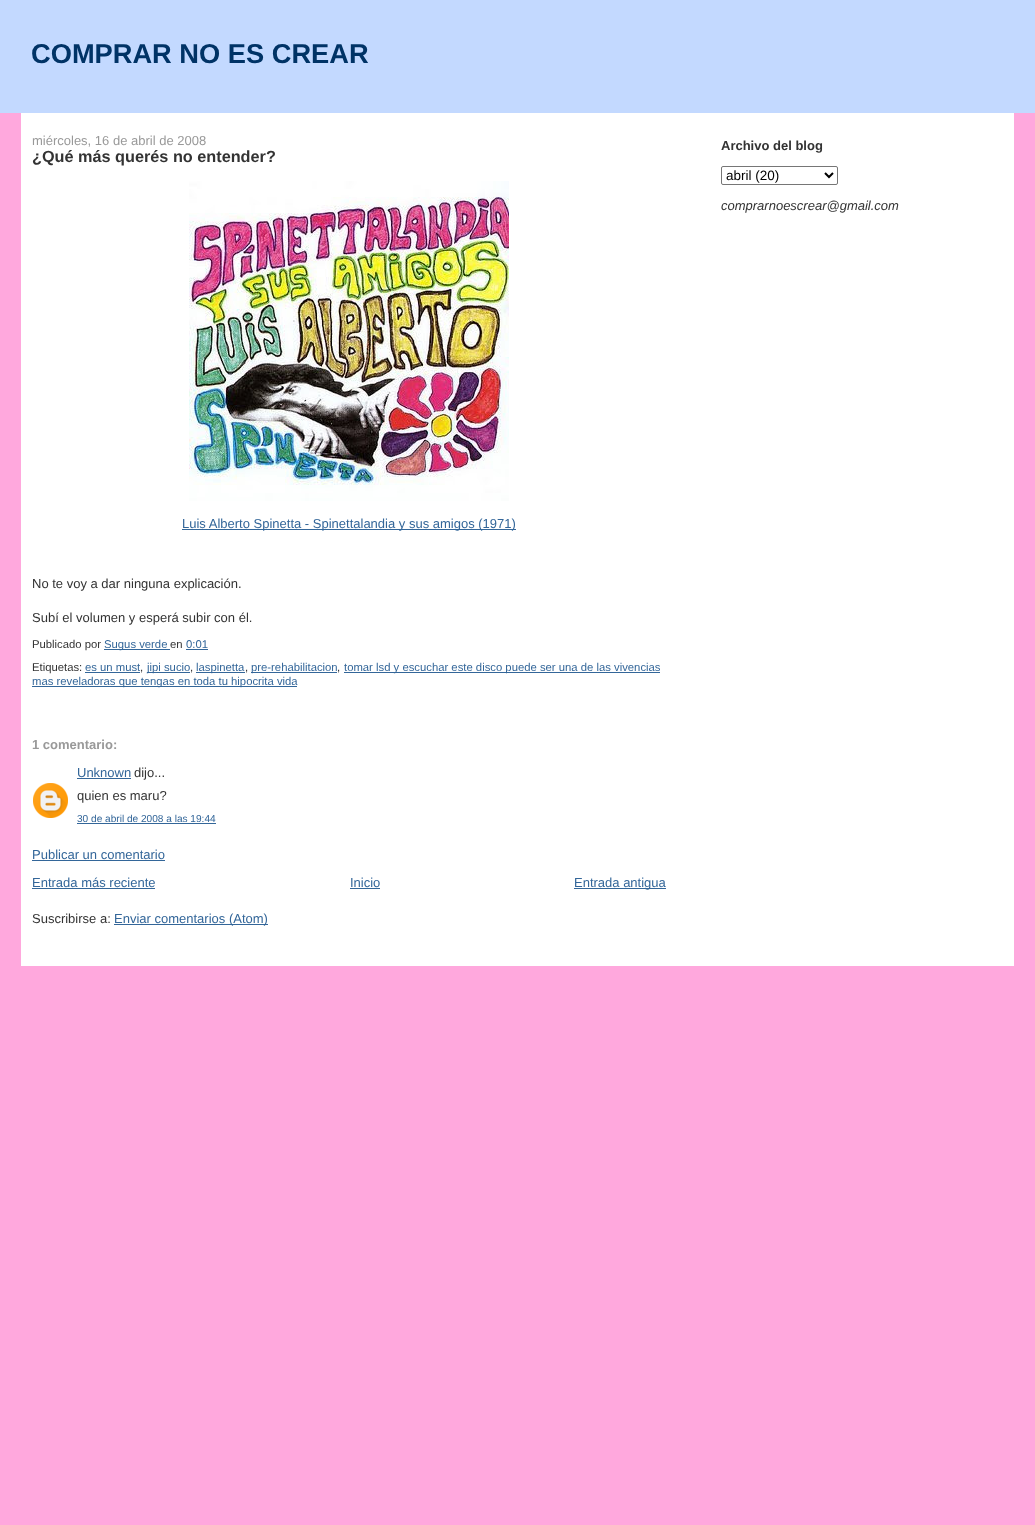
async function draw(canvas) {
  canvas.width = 1035
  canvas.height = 1525
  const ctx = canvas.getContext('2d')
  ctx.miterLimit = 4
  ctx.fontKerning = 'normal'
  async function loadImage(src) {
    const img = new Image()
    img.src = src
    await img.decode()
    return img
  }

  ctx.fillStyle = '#ffa8dd'
  ctx.fillRect(0, 0, 1035, 1525)
  ctx.fillStyle = '#c3d9ff'
  ctx.fillRect(0, 0, 1035, 113)
  ctx.font = 'bold 27.25px Liberation Sans'
  ctx.fillStyle = '#036'
  ctx.fillText('COMPRAR NO ES CREAR', 31, 63)
  ctx.fillStyle = '#fff'
  ctx.fillRect(21, 113, 993, 853)
  ctx.font = '13px Liberation Sans'
  ctx.fillStyle = '#999'
  ctx.fillText('miércoles, 16 de abril de 2008', 32, 145)
  ctx.font = 'bold 16.25px Liberation Sans'
  ctx.fillStyle = '#333'
  ctx.fillText('¿Qué más querés no entender?', 32, 162)
  ctx.drawImage(await loadImage('image0.png'), 189, 181, 320, 320)
  ctx.fillStyle = '#369'
  ctx.fillRect(182, 529, 334, 1)
  ctx.font = '13px Liberation Sans'
  ctx.fillText('Luis Alberto Spinetta - Spinettalandia y sus amigos (1971)', 182, 528)
  ctx.fillStyle = '#333'
  ctx.fillText('No te voy a dar ninguna explicación.', 32, 588)
  ctx.fillText('Subí el volumen y esperá subir con él.', 32, 622)
  ctx.font = '11.3px Liberation Sans'
  ctx.fillText('Publicado por', 32, 648)
  ctx.fillStyle = '#369'
  ctx.fillRect(104, 649, 66, 1)
  ctx.fillText('Sugus verde', 104, 648)
  ctx.fillStyle = '#333'
  ctx.fillText('en', 170, 648)
  ctx.fillStyle = '#369'
  ctx.fillText('0:01', 186, 648)
  ctx.fillRect(186, 649, 22, 1)
  ctx.fillStyle = '#333'
  ctx.fillText('Etiquetas:', 32, 671)
  ctx.fillStyle = '#369'
  ctx.fillText('es un must', 85, 671)
  ctx.fillStyle = '#333'
  ctx.fillText(',', 140, 671)
  ctx.fillStyle = '#369'
  ctx.fillRect(85, 672, 55, 1)
  ctx.fillRect(147, 672, 43, 1)
  ctx.fillText('jipi sucio', 147, 671)
  ctx.fillStyle = '#333'
  ctx.fillText(',', 190, 671)
  ctx.fillStyle = '#369'
  ctx.fillRect(196, 672, 49, 1)
  ctx.fillText('laspinetta', 196, 671)
  ctx.fillStyle = '#333'
  ctx.fillText(',', 245, 671)
  ctx.fillStyle = '#369'
  ctx.fillRect(251, 672, 86, 1)
  ctx.fillText('pre-rehabilitacion', 251, 671)
  ctx.fillStyle = '#333'
  ctx.fillText(',', 337, 671)
  ctx.fillStyle = '#369'
  ctx.fillRect(344, 672, 316, 1)
  ctx.fillText('tomar lsd y escuchar este disco puede ser una de las vivencias', 344, 671)
  ctx.fillRect(32, 686, 265, 1)
  ctx.fillText('mas reveladoras que tengas en toda tu hipocrita vida', 32, 685)
  ctx.font = 'bold 13px Liberation Sans'
  ctx.fillStyle = '#999'
  ctx.fillText('1 comentario:', 32, 749)
  ctx.font = '13px Liberation Sans'
  ctx.fillStyle = '#369'
  ctx.fillText('Unknown', 77, 777)
  ctx.fillRect(77, 778, 54, 1)
  ctx.fillStyle = '#333'
  ctx.fillText('dijo...', 134, 777)
  ctx.drawImage(await loadImage('image1.png'), 33, 783, 35, 35)
  ctx.fillText('quien es maru?', 77, 800)
  ctx.font = '10.1px Liberation Sans'
  ctx.fillStyle = '#369'
  ctx.fillText('30 de abril de 2008 a las 19:44', 77, 822)
  ctx.fillRect(77, 823, 139, 1)
  ctx.font = '13px Liberation Sans'
  ctx.fillText('Publicar un comentario', 32, 859)
  ctx.fillRect(32, 860, 133, 1)
  ctx.fillText('Entrada más reciente', 32, 887)
  ctx.fillRect(32, 888, 123, 1)
  ctx.fillText('Inicio', 350, 887)
  ctx.fillRect(350, 888, 30, 1)
  ctx.fillRect(574, 888, 92, 1)
  ctx.fillText('Entrada antigua', 574, 887)
  ctx.fillStyle = '#333'
  ctx.fillText('Suscribirse a:', 32, 923)
  ctx.fillStyle = '#369'
  ctx.fillRect(114, 924, 154, 1)
  ctx.fillText('Enviar comentarios (Atom)', 114, 923)
  ctx.font = 'bold 13px Liberation Sans'
  ctx.fillStyle = '#333'
  ctx.fillText('Archivo del blog', 721, 150)
  ctx.beginPath()
  ctx.roundRect(721.5, 166.5, 116, 18, 1.5)
  ctx.strokeStyle = '#767676'
  ctx.stroke()
  ctx.beginPath()
  ctx.moveTo(825, 173)
  ctx.lineTo(829, 177)
  ctx.lineTo(833, 173)
  ctx.strokeStyle = '#000'
  ctx.lineWidth = 2
  ctx.stroke()
  ctx.font = '13.5px Liberation Sans'
  ctx.fillStyle = '#000'
  ctx.fillText('abril (20)', 726, 180)
  ctx.font = 'italic 13px Liberation Sans'
  ctx.fillStyle = '#333'
  ctx.fillText('comprarnoescrear@gmail.com', 721, 210)
}

draw(document.querySelector('canvas'))
